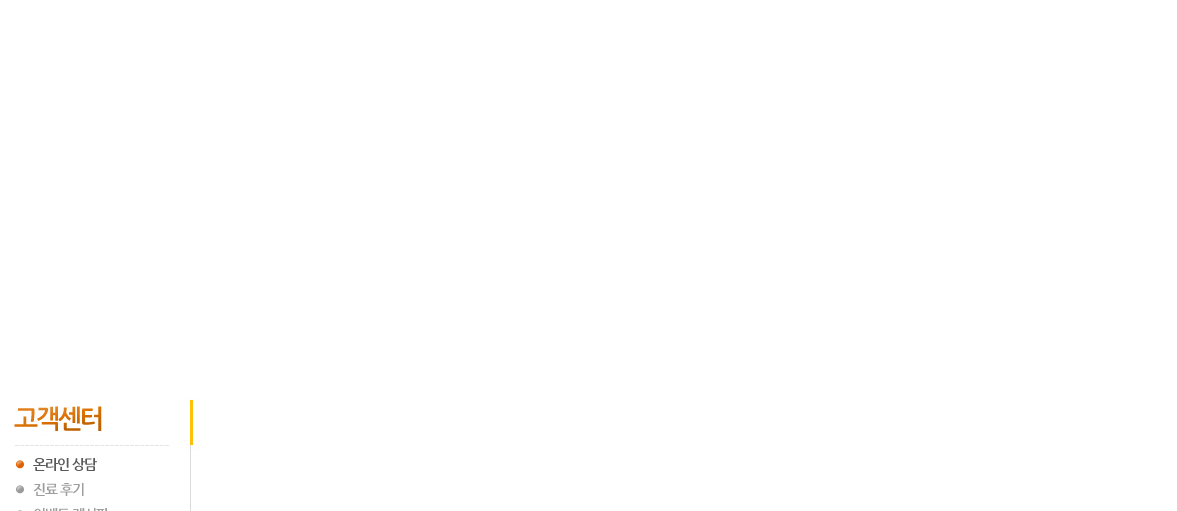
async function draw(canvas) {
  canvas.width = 1177
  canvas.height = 511
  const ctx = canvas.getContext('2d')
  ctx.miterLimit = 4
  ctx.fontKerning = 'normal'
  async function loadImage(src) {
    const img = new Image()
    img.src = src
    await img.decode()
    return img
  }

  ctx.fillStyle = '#fff'
  ctx.fillRect(0, 0, 1177, 511)
  ctx.drawImage(await loadImage('image0.png'), 14, 397, 186, 54)
  ctx.drawImage(await loadImage('image1.png'), 16, 458, 81, 13)
  ctx.drawImage(await loadImage('image2.png'), 16, 483, 68, 13)
  ctx.drawImage(await loadImage('image3.png'), 18, 508, 89, 3)
  ctx.fillStyle = '#dbdbdb'
  ctx.fillRect(190, 451, 1, 60)
}

draw(document.querySelector('canvas'))
